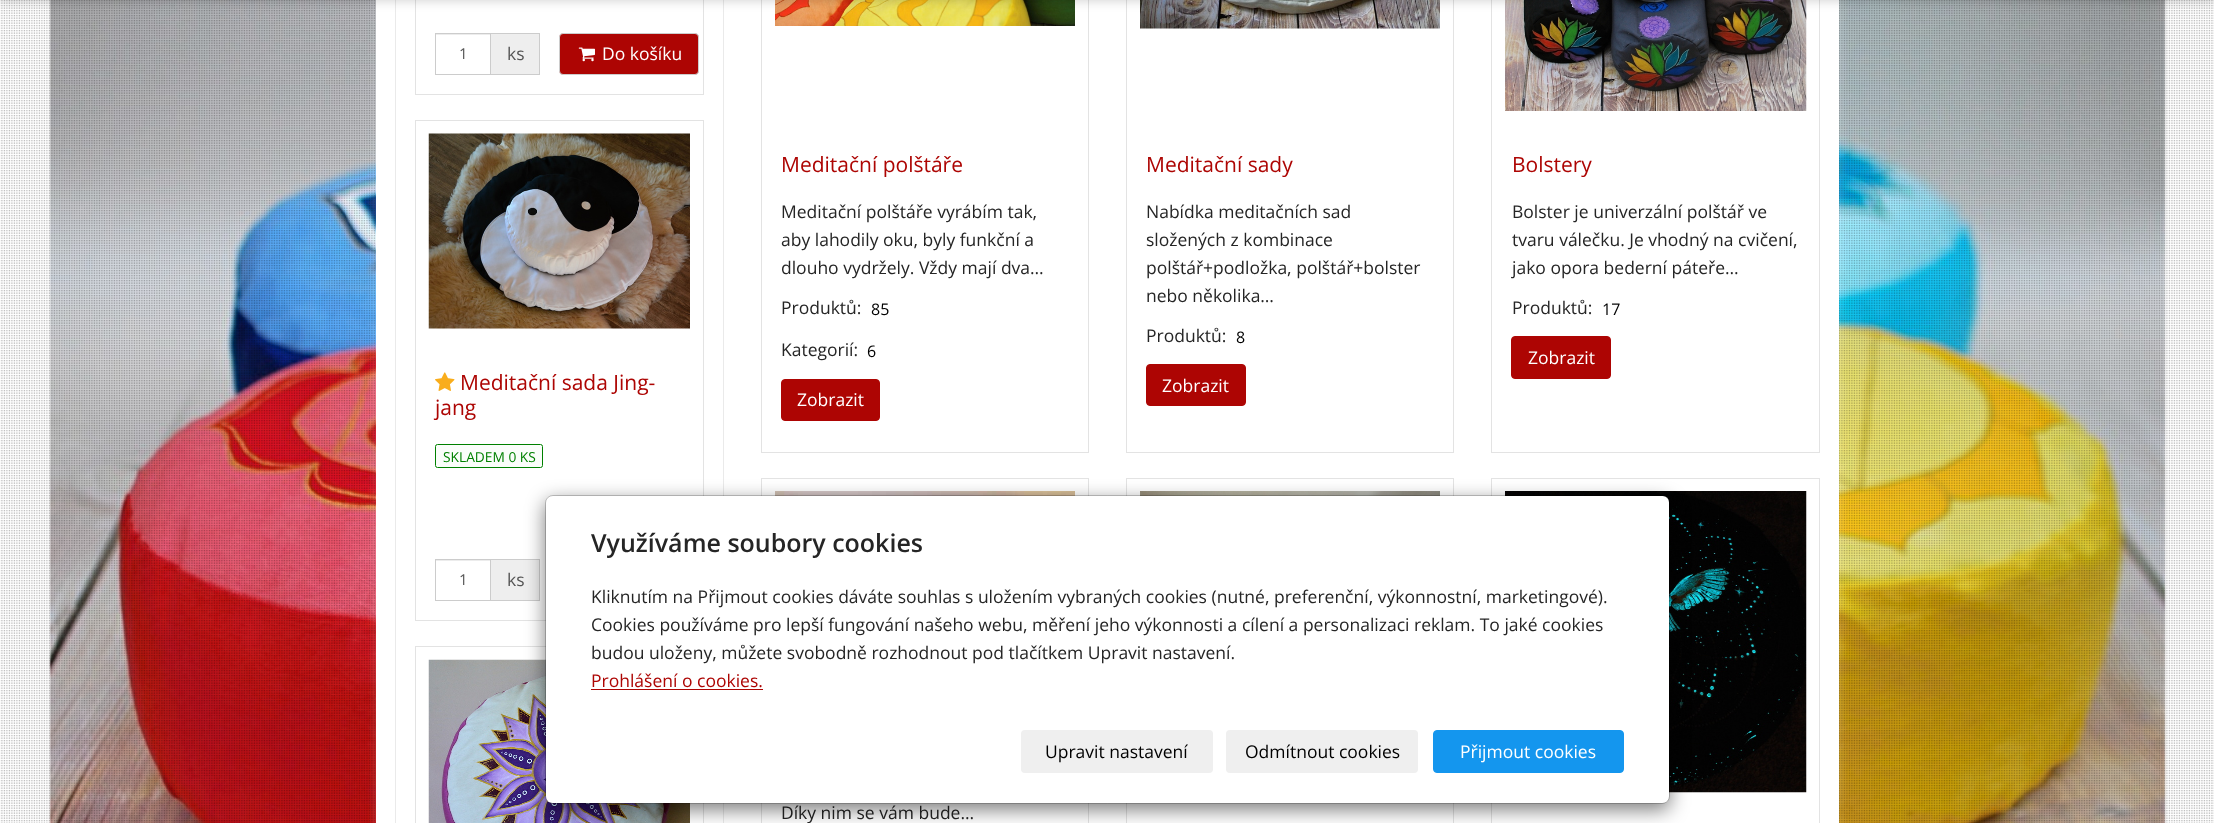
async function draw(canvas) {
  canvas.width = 2214
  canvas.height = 823
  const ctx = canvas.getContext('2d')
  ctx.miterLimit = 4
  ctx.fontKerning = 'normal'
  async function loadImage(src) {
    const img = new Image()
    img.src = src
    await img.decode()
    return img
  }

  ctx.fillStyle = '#fff'
  ctx.fillRect(0, 0, 2214, 823)
  ctx.drawImage(await loadImage('image0.png'), 48, 0, 2119, 823)
  ctx.drawImage(await loadImage('image1.png'), 0, 0, 2214, 823)
  ctx.fillStyle = '#ffffff1a'
  ctx.filter = 'blur(3px)'
  ctx.beginPath()
  ctx.rect(373, -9, 1470, 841)
  ctx.fill()
  ctx.filter = 'none'
  ctx.fillStyle = '#fff'
  ctx.fillRect(376, 0, 1463, 823)
  ctx.strokeStyle = '#eaeaea'
  ctx.strokeRect(395.5, -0.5, 328, 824)
  ctx.strokeStyle = '#e3e3e3'
  ctx.strokeRect(415.5, -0.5, 288, 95)
  ctx.strokeRect(761.5, -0.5, 327, 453)
  ctx.drawImage(await loadImage('image6.png'), 775, 0, 300, 26)
  ctx.strokeRect(1126.5, -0.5, 327, 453)
  ctx.drawImage(await loadImage('image7.png'), 1140, 0, 300, 29)
  ctx.strokeRect(1491.5, -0.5, 328, 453)
  ctx.drawImage(await loadImage('image8.png'), 1505, 0, 302, 111)
  ctx.fillStyle = '#00000033'
  ctx.filter = 'blur(6px)'
  ctx.beginPath()
  ctx.rect(0, -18, 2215, 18)
  ctx.fill()
  ctx.filter = 'none'
  ctx.fillStyle = '#ececec'
  ctx.fillRect(436, 34, 54, 1)
  ctx.strokeStyle = '#ccc'
  ctx.strokeRect(435.5, 33.5, 55, 41)
  ctx.font = '15px Open Sans'
  ctx.fillStyle = '#555'
  ctx.fillText('1', 459, 59)
  ctx.fillStyle = '#eee'
  ctx.fillRect(491, 34, 48, 40)
  ctx.fillStyle = '#ccc'
  ctx.fillRect(491, 33, 49, 1)
  ctx.fillRect(539, 33, 1, 42)
  ctx.fillRect(491, 74, 49, 1)
  ctx.font = '17.5px Open Sans'
  ctx.fillStyle = '#555'
  ctx.fillText('ks', 507, 60)
  ctx.fillStyle = '#ad0503'
  ctx.beginPath()
  ctx.roundRect(559.5, 33.5, 139, 41, 3.5)
  ctx.fill()
  ctx.stroke()
  ctx.drawImage(await loadImage('image2.png'), 578, 47, 17, 15)
  ctx.fillStyle = '#fff'
  ctx.fillText('Do košíku', 602, 60)
  ctx.strokeStyle = '#e3e3e3'
  ctx.strokeRect(415.5, 120.5, 288, 500)
  ctx.drawImage(await loadImage('image3.png'), 428, 133, 262, 196)
  ctx.drawImage(await loadImage('image4.png'), 435, 372, 20, 19)
  ctx.font = '21px Open Sans'
  ctx.fillStyle = '#ad0503'
  ctx.fillText('Meditační sada Jing-', 460, 390)
  ctx.fillText('jang', 435, 415)
  ctx.fillStyle = '#fafdfa'
  ctx.beginPath()
  ctx.roundRect(435.5, 444.5, 107, 23, 2)
  ctx.fill()
  ctx.strokeStyle = '#008000'
  ctx.stroke()
  ctx.font = '13.75px Open Sans'
  ctx.fillStyle = '#008000'
  ctx.fillText('SKLADEM 0 KS', 443, 462)
  ctx.fillStyle = '#ececec'
  ctx.fillRect(436, 560, 54, 1)
  ctx.strokeStyle = '#ccc'
  ctx.strokeRect(435.5, 559.5, 55, 41)
  ctx.font = '15px Open Sans'
  ctx.fillStyle = '#555'
  ctx.fillText('1', 459, 585)
  ctx.fillStyle = '#eee'
  ctx.fillRect(491, 560, 48, 40)
  ctx.fillStyle = '#ccc'
  ctx.fillRect(491, 559, 49, 1)
  ctx.fillRect(539, 559, 1, 42)
  ctx.fillRect(491, 600, 49, 1)
  ctx.font = '17.5px Open Sans'
  ctx.fillStyle = '#555'
  ctx.fillText('ks', 507, 586)
  ctx.strokeStyle = '#e3e3e3'
  ctx.strokeRect(415.5, 646.5, 288, 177)
  ctx.drawImage(await loadImage('image5.png'), 428, 659, 262, 164)
  ctx.font = '21px Open Sans'
  ctx.fillStyle = '#ad0503'
  ctx.fillText('Meditační polštáře', 781, 172)
  ctx.font = '17.5px Open Sans'
  ctx.fillStyle = '#252525'
  ctx.fillText('Meditační polštáře vyrábím tak,', 781, 218)
  ctx.fillText('aby lahodily oku, byly funkční a', 781, 246)
  ctx.fillText('dlouho vydržely. Vždy mají dva…', 781, 274)
  ctx.fillText('Produktů:', 781, 314)
  ctx.font = '16px Open Sans'
  ctx.fillStyle = '#000'
  ctx.fillText('85', 871, 315)
  ctx.font = '17.5px Open Sans'
  ctx.fillStyle = '#252525'
  ctx.fillText('Kategorií:', 781, 356)
  ctx.font = '16px Open Sans'
  ctx.fillStyle = '#000'
  ctx.fillText('6', 867, 357)
  ctx.fillStyle = '#ad0503'
  ctx.beginPath()
  ctx.roundRect(781.5, 379.5, 98, 41, 3.5)
  ctx.fill()
  ctx.strokeStyle = '#ad0503'
  ctx.stroke()
  ctx.font = '17.5px Open Sans'
  ctx.fillStyle = '#fff'
  ctx.fillText('Zobrazit', 797, 406)
  ctx.font = '21px Open Sans'
  ctx.fillStyle = '#ad0503'
  ctx.fillText('Meditační sady', 1146, 172)
  ctx.font = '17.5px Open Sans'
  ctx.fillStyle = '#252525'
  ctx.fillText('Nabídka meditačních sad', 1146, 218)
  ctx.fillText('složených z kombinace', 1146, 246)
  ctx.fillText('polštář+podložka, polštář+bolster', 1146, 274)
  ctx.fillText('nebo několika…', 1146, 302)
  ctx.fillText('Produktů:', 1146, 342)
  ctx.font = '16px Open Sans'
  ctx.fillStyle = '#000'
  ctx.fillText('8', 1236, 343)
  ctx.fillStyle = '#ad0503'
  ctx.beginPath()
  ctx.roundRect(1146.5, 364.5, 99, 41, 3.5)
  ctx.fill()
  ctx.stroke()
  ctx.font = '17.5px Open Sans'
  ctx.fillStyle = '#fff'
  ctx.fillText('Zobrazit', 1162, 392)
  ctx.font = '21px Open Sans'
  ctx.fillStyle = '#ad0503'
  ctx.fillText('Bolstery', 1512, 172)
  ctx.font = '17.5px Open Sans'
  ctx.fillStyle = '#252525'
  ctx.fillText('Bolster je univerzální polštář ve', 1512, 218)
  ctx.fillText('tvaru válečku. Je vhodný na cvičení,', 1512, 246)
  ctx.fillText('jako opora bederní páteře…', 1512, 274)
  ctx.fillText('Produktů:', 1512, 314)
  ctx.font = '16px Open Sans'
  ctx.fillStyle = '#000'
  ctx.fillText('17', 1602, 315)
  ctx.fillStyle = '#ad0503'
  ctx.beginPath()
  ctx.roundRect(1511.5, 336.5, 99, 42, 3.5)
  ctx.fill()
  ctx.stroke()
  ctx.font = '17.5px Open Sans'
  ctx.fillStyle = '#fff'
  ctx.fillText('Zobrazit', 1528, 364)
  ctx.strokeStyle = '#e3e3e3'
  ctx.strokeRect(761.5, 478.5, 327, 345)
  ctx.drawImage(await loadImage('image9.png'), 775, 491, 300, 5)
  ctx.fillStyle = '#252525'
  ctx.fillText('Díky nim se vám bude…', 781, 819)
  ctx.strokeRect(1126.5, 478.5, 327, 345)
  ctx.drawImage(await loadImage('image10.png'), 1140, 491, 300, 5)
  ctx.strokeRect(1491.5, 478.5, 328, 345)
  ctx.drawImage(await loadImage('image11.png'), 1505, 491, 302, 302)
  ctx.fillStyle = '#00000080'
  ctx.filter = 'blur(9.5px)'
  ctx.beginPath()
  ctx.roundRect(545, 501, 1125, 309, 8)
  ctx.fill()
  ctx.filter = 'none'
  ctx.fillStyle = '#fff'
  ctx.beginPath()
  ctx.roundRect(546, 496, 1123, 307, 6)
  ctx.fill()
  ctx.beginPath()
  ctx.roundRect(545.5, 495.5, 1124, 308, 7.5)
  ctx.strokeStyle = '#00000033'
  ctx.stroke()
  ctx.font = '600 25px Open Sans'
  ctx.fillStyle = '#252525'
  ctx.fillText('Využíváme soubory cookies', 591, 552)
  ctx.font = '17.5px Open Sans'
  ctx.fillText('Kliknutím na Přijmout cookies dáváte souhlas s uložením vybraných cookies (nutné, preferenční, výkonnostní, marketingové).', 591, 603)
  ctx.fillText('Cookies používáme pro lepší fungování našeho webu, měření jeho výkonnosti a cílení a personalizaci reklam. To jaké cookies', 591, 631)
  ctx.fillText('budou uloženy, můžete svobodně rozhodnout pod tlačítkem Upravit nastavení.', 591, 659)
  ctx.fillStyle = '#ad0503'
  ctx.fillText('Prohlášení o cookies.', 591, 687)
  ctx.fillRect(591, 689, 172, 1)
  ctx.fillStyle = '#efefef'
  ctx.beginPath()
  ctx.roundRect(1021, 730, 192, 43, 4)
  ctx.fill()
  ctx.fillStyle = '#000'
  ctx.fillText('Upravit nastavení', 1045, 758)
  ctx.fillStyle = '#efefef'
  ctx.beginPath()
  ctx.roundRect(1226, 730, 192, 43, 4)
  ctx.fill()
  ctx.fillStyle = '#000'
  ctx.fillText('Odmítnout cookies', 1245, 758)
  ctx.fillStyle = '#1496ee'
  ctx.beginPath()
  ctx.roundRect(1433.5, 730.5, 190, 42, 3.5)
  ctx.fill()
  ctx.strokeStyle = '#1496ee'
  ctx.stroke()
  ctx.fillStyle = '#fff'
  ctx.fillText('Přijmout cookies', 1460, 758)
}

draw(document.querySelector('canvas'))
